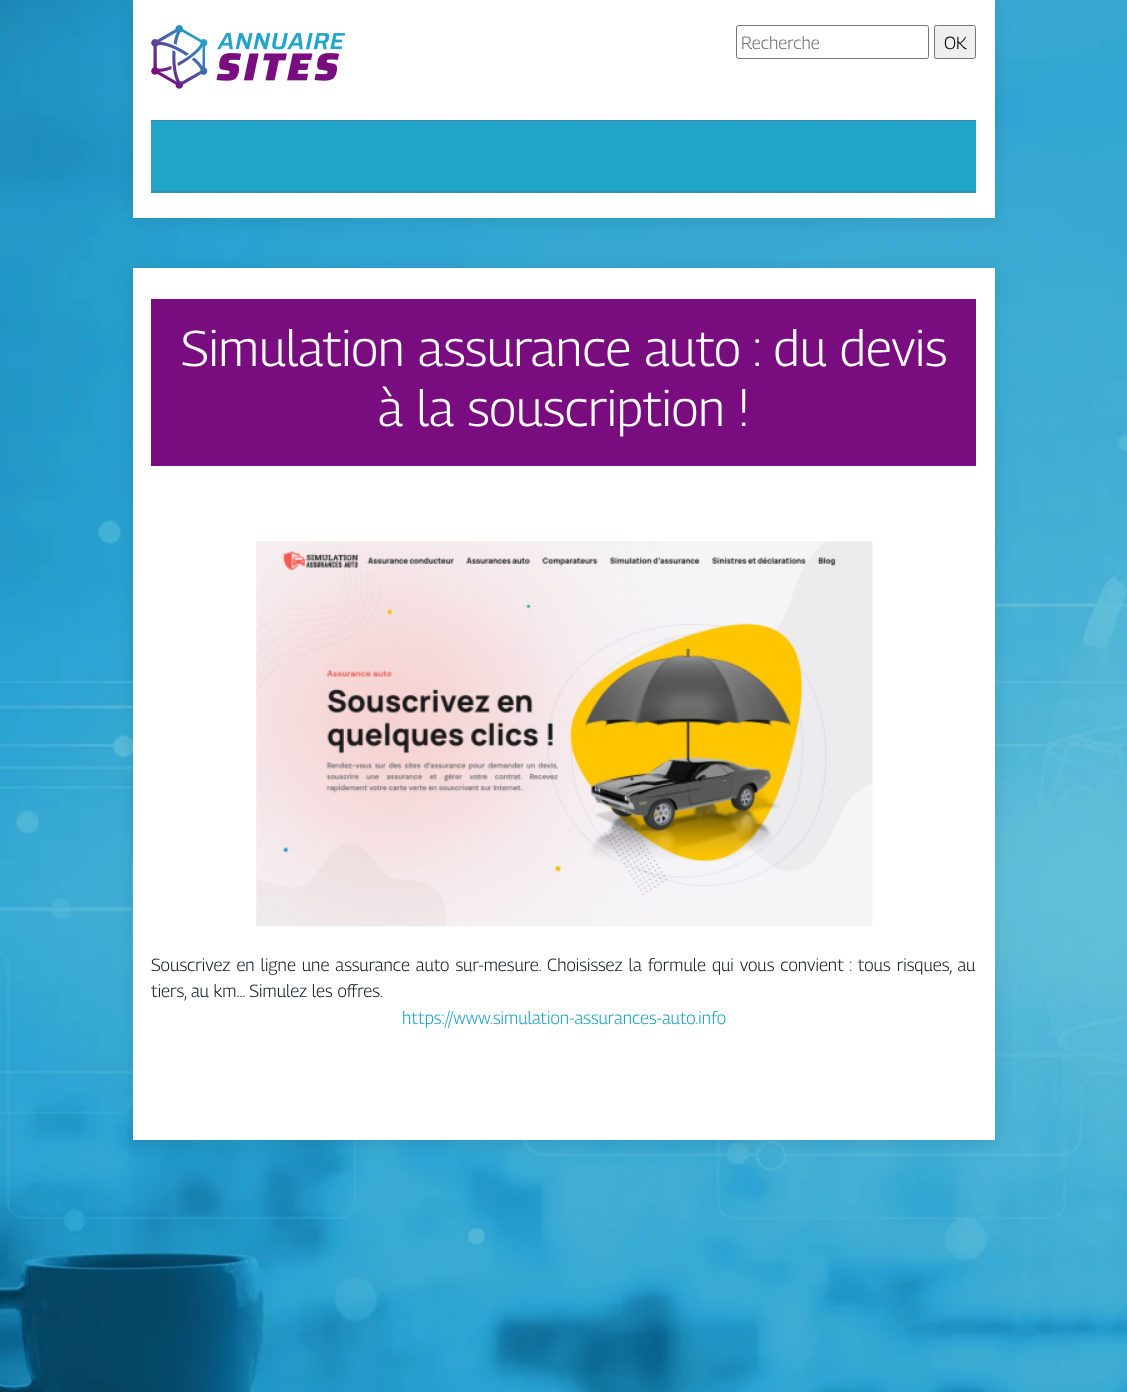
async function draw(canvas) {
  canvas.width = 1127
  canvas.height = 1392
  const ctx = canvas.getContext('2d')
  ctx.miterLimit = 4
  ctx.fontKerning = 'normal'
  async function loadImage(src) {
    const img = new Image()
    img.src = src
    await img.decode()
    return img
  }

  ctx.fillStyle = '#fff'
  ctx.fillRect(0, 0, 1127, 1392)
  ctx.drawImage(await loadImage('image0.png'), 0, 0, 1127, 1392)
  ctx.fillStyle = '#0000001a'
  ctx.filter = 'blur(8px)'
  ctx.beginPath()
  ctx.rect(133, 3, 862, 217)
  ctx.fill()
  ctx.filter = 'none'
  ctx.fillStyle = '#fff'
  ctx.fillRect(133, 0, 862, 218)
  ctx.drawImage(await loadImage('image1.png'), 151, 25, 194, 64)
  ctx.beginPath()
  ctx.roundRect(736.5, 25.5, 192, 33, 2)
  ctx.strokeStyle = '#767676'
  ctx.stroke()
  ctx.font = '100 17.5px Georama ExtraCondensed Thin'
  ctx.fillStyle = '#757575'
  ctx.fillText('Recherche', 741, 49)
  ctx.fillStyle = '#efefef'
  ctx.beginPath()
  ctx.roundRect(934.5, 25.5, 41, 33, 2)
  ctx.fill()
  ctx.stroke()
  ctx.fillStyle = '#000'
  ctx.fillText('OK', 944, 49)
  ctx.fillStyle = '#21a5c8'
  ctx.fillRect(151, 120, 825, 73)
  ctx.beginPath()
  ctx.moveTo(151, 120.5)
  ctx.lineTo(976, 120.5)
  ctx.strokeStyle = '#666'
  ctx.lineWidth = 1.2
  ctx.setLineDash([1.25, 1.25])
  ctx.stroke()
  ctx.beginPath()
  ctx.moveTo(151, 192)
  ctx.lineTo(976, 192)
  ctx.stroke()
  ctx.fillStyle = '#0000001a'
  ctx.filter = 'blur(8px)'
  ctx.beginPath()
  ctx.rect(133, 270, 862, 873)
  ctx.fill()
  ctx.filter = 'none'
  ctx.fillStyle = '#fff'
  ctx.fillRect(133, 268, 862, 872)
  ctx.fillStyle = '#790c7f'
  ctx.fillRect(151, 299, 825, 167)
  ctx.font = '100 50px Georama ExtraCondensed Thin'
  ctx.fillStyle = '#fff'
  ctx.fillText('Simulation assurance auto : du devis', 181, 366)
  ctx.fillText('à la souscription !', 378, 426)
  ctx.drawImage(await loadImage('image2.png'), 256, 541, 617, 386)
  ctx.wordSpacing = '1.25px'
  ctx.font = '100 17.5px Georama ExtraCondensed Thin'
  ctx.fillStyle = '#212529'
  ctx.fillText('Souscrivez en ligne une assurance auto sur-mesure. Choisissez la formule qui vous convient : tous risques, au', 151, 971)
  ctx.wordSpacing = '0px'
  ctx.fillText('tiers, au km… Simulez les offres.', 151, 997)
  ctx.fillStyle = '#21a5c8'
  ctx.fillText('https://www.simulation-assurances-auto.info', 402, 1024)
}

draw(document.querySelector('canvas'))
